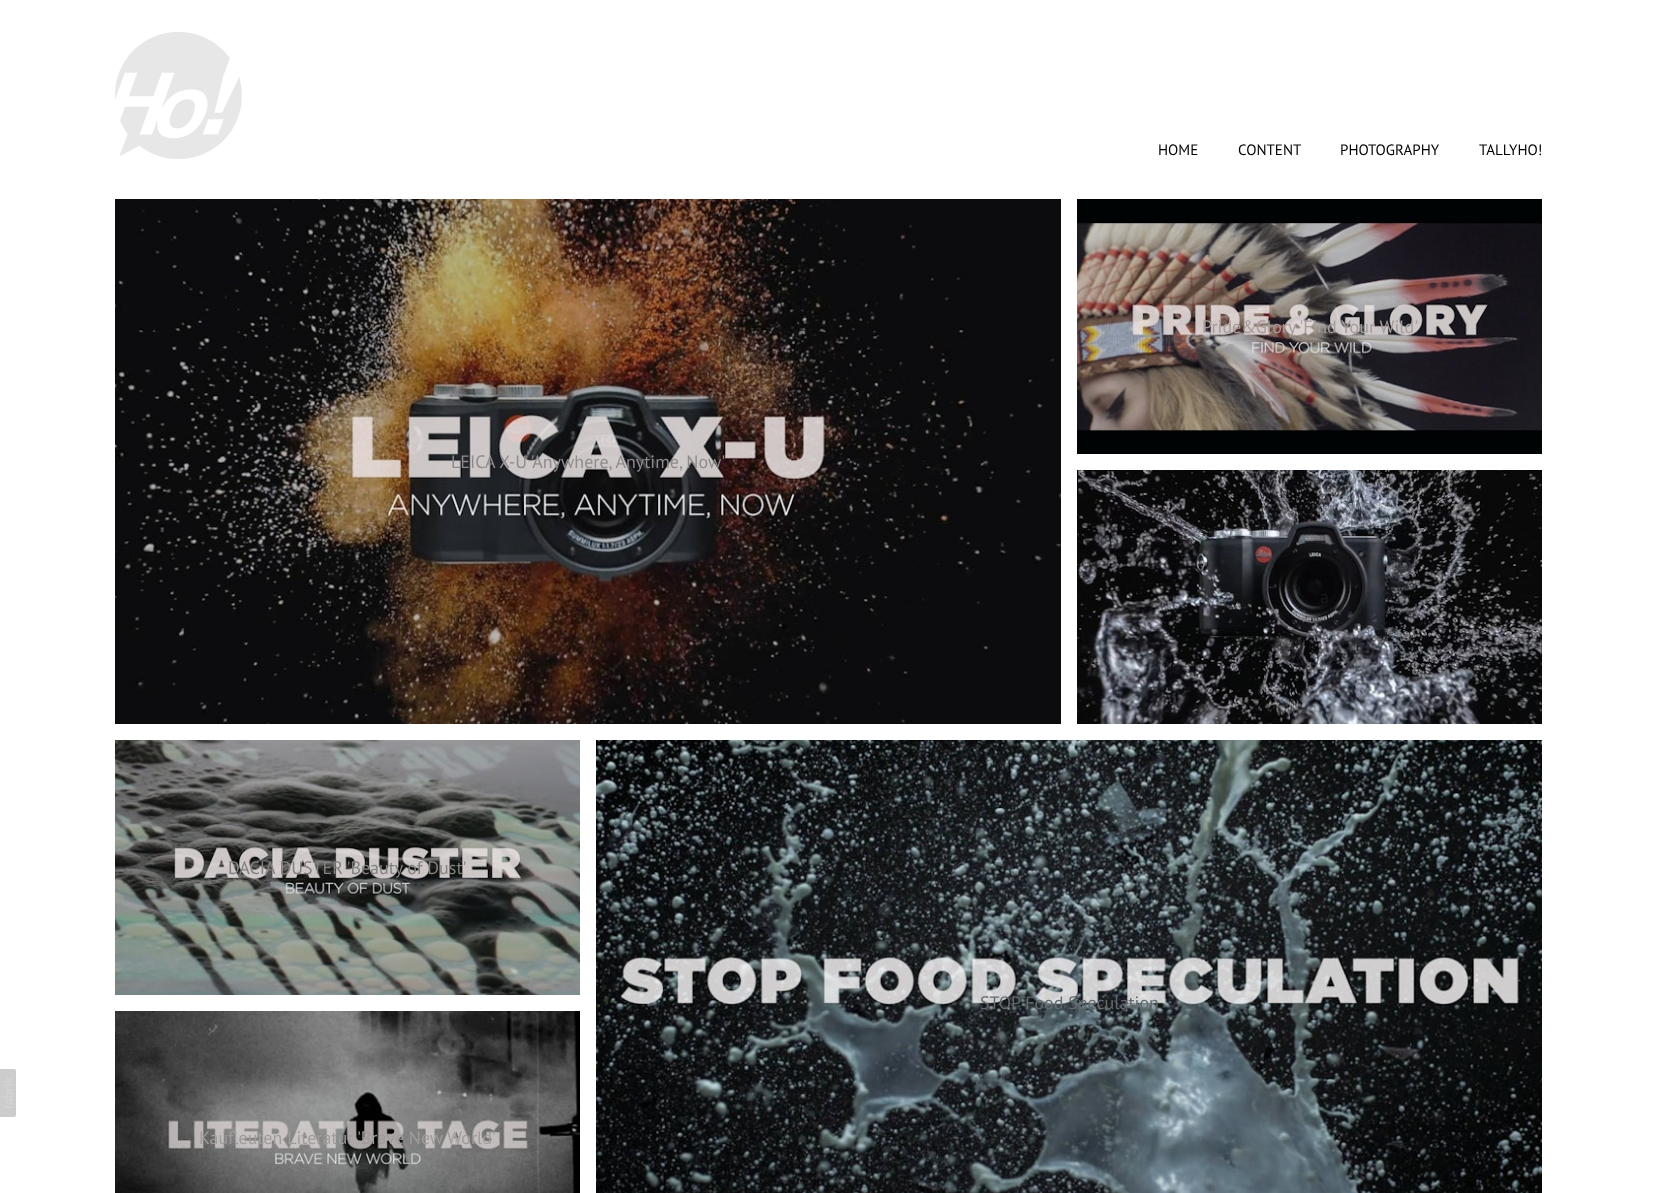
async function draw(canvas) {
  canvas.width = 1657
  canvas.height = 1193
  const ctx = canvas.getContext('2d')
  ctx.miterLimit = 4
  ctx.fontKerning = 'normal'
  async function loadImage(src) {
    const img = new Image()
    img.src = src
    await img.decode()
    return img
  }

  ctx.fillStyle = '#fff'
  ctx.fillRect(0, 0, 1657, 1193)
  ctx.drawImage(await loadImage('image0.png'), 0, 1069, 16, 48)
  ctx.drawImage(await loadImage('image1.png'), 115, 32, 127, 127)
  ctx.font = '15px PT Sans'
  ctx.fillStyle = '#000'
  ctx.fillText('HOME', 1158, 155)
  ctx.fillText('CONTENT', 1238, 155)
  ctx.fillText('PHOTOGRAPHY', 1340, 155)
  ctx.fillText('TALLYHO!', 1479, 155)
  ctx.drawImage(await loadImage('image2.png'), 1077, 199, 465, 255)
  ctx.font = '18px PT Sans'
  ctx.fillStyle = '#a59b9a'
  ctx.fillText('Pride&Glory \'Find Your Wild\'', 1202, 333)
  ctx.drawImage(await loadImage('image3.png'), 115, 199, 946, 525)
  ctx.fillStyle = '#8f8b8c'
  ctx.fillText('LEICA X-U \'Anywhere, Anytime, Now\'', 451, 468)
  ctx.drawImage(await loadImage('image4.png'), 1077, 470, 465, 254)
  ctx.fillStyle = '#19191c'
  ctx.fillText('a', 1320, 603)
  ctx.drawImage(await loadImage('image5.png'), 115, 740, 465, 255)
  ctx.fillStyle = '#838180'
  ctx.fillText('DACIA DUSTER \'Beauty of Dust\'', 228, 874)
  ctx.drawImage(await loadImage('image6.png'), 596, 740, 946, 453)
  ctx.fillStyle = '#636a6d'
  ctx.fillText('STOP Food Speculation', 980, 1009)
  ctx.drawImage(await loadImage('image7.png'), 115, 1011, 465, 182)
  ctx.fillStyle = '#9f9c9c'
  ctx.fillText('Kaufleuten Literatur \'Brave New World\'', 199, 1144)
}

draw(document.querySelector('canvas'))
